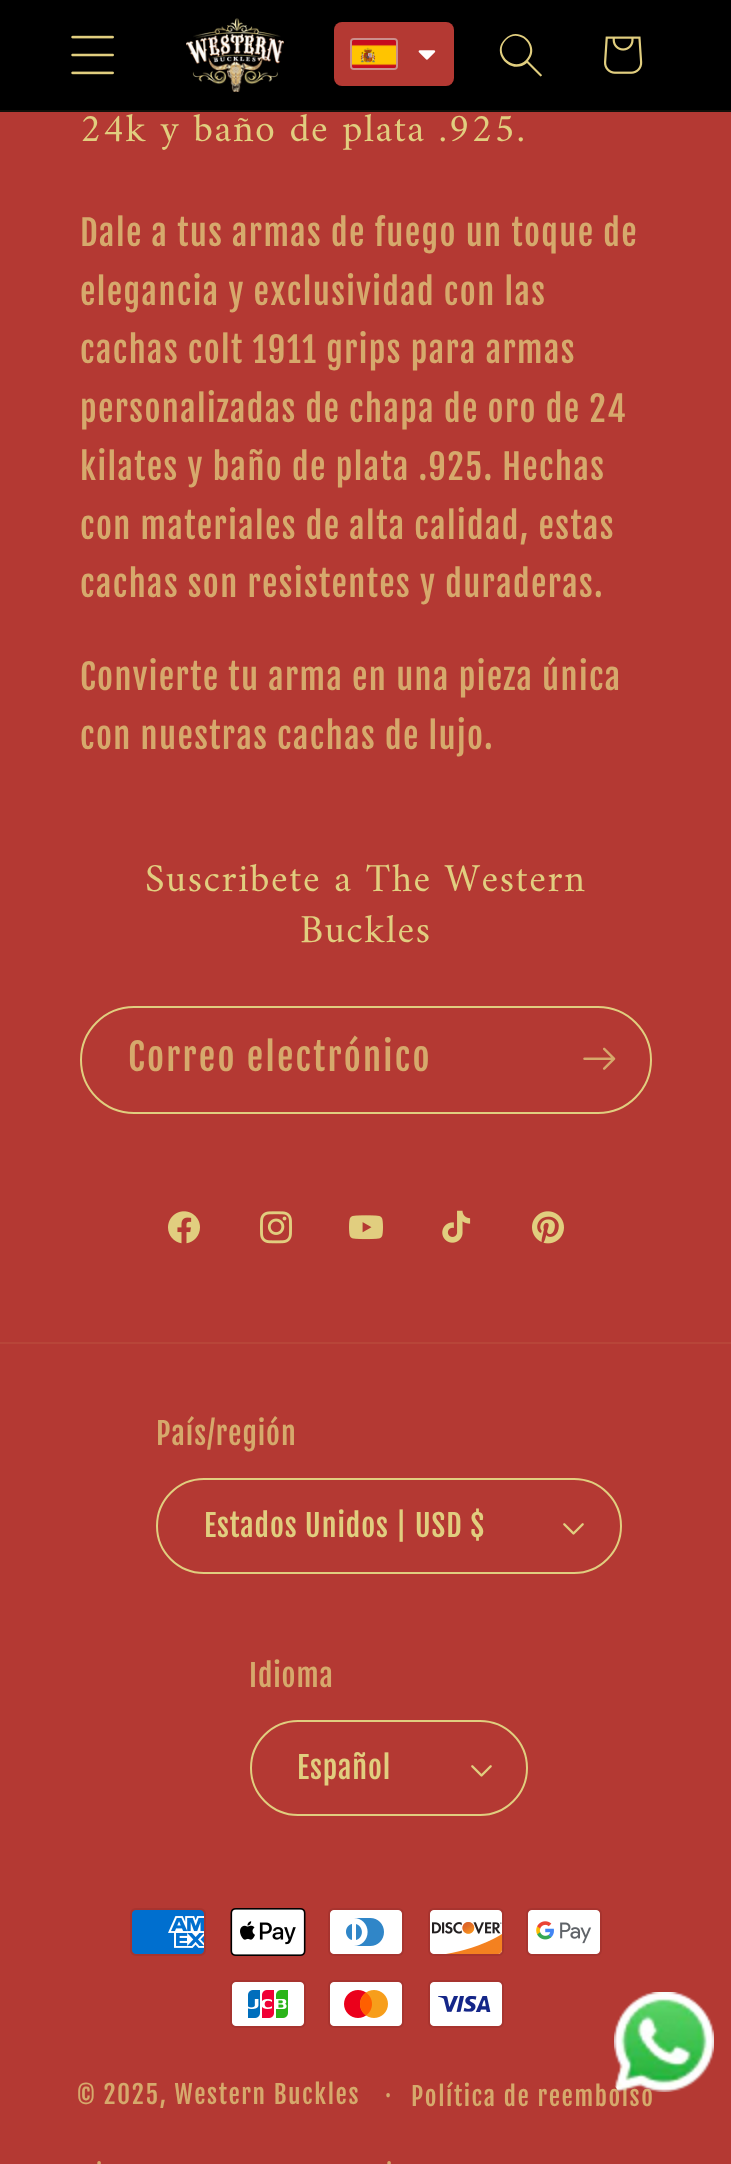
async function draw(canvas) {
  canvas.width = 731
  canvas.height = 2164
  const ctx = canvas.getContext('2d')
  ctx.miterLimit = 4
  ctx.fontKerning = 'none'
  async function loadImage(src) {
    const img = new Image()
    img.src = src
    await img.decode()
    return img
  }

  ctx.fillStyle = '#b43933'
  ctx.fillRect(0, 0, 731, 2164)
  ctx.fillStyle = '#000'
  ctx.fillRect(0, 0, 731, 110)
  ctx.fillStyle = '#12100a'
  ctx.fillRect(0, 110, 731, 2)
  ctx.drawImage(await loadImage('image0.png'), 71, 35, 43, 40)
  ctx.drawImage(await loadImage('image1.png'), 186, 18, 98, 74)
  ctx.fillStyle = '#b43933'
  ctx.beginPath()
  ctx.roundRect(334, 22, 120, 64, 8)
  ctx.fill()
  ctx.beginPath()
  ctx.roundRect(351, 39, 46, 30, 3)
  ctx.strokeStyle = '#cb8e8c'
  ctx.lineWidth = 2
  ctx.stroke()
  ctx.drawImage(await loadImage('image2.png'), 352, 40, 44, 28)
  ctx.drawImage(await loadImage('image3.png'), 418, 50, 18, 10)
  ctx.fillStyle = '#e1ce7f'
  ctx.beginPath()
  ctx.moveTo(526, 60)
  ctx.bezierCurveTo(513, 73, 493, 53, 506, 40)
  ctx.bezierCurveTo(519, 27, 539, 47, 526, 60)
  ctx.moveTo(527, 63)
  ctx.bezierCurveTo(511, 76, 490, 53, 505, 39)
  ctx.bezierCurveTo(519, 24, 542, 46, 528, 61)
  ctx.lineTo(542, 75)
  ctx.bezierCurveTo(542, 76, 540, 77, 540, 76)
  ctx.closePath()
  ctx.fill('evenodd')
  ctx.drawImage(await loadImage('image4.png'), 604, 36, 39, 38)
  ctx.letterSpacing = '1.5px'
  ctx.font = '40px Amiri'
  ctx.fillText('24k y baño de plata .925.', 80, 141)
  ctx.letterSpacing = '1.4px'
  ctx.font = '34.5px Fjalla One'
  ctx.fillStyle = '#d6a96c'
  ctx.fillText('Dale a tus armas de fuego un toque de', 80, 246)
  ctx.fillText('elegancia y exclusividad con las', 80, 305)
  ctx.fillText('cachas colt 1911 grips para armas', 80, 363)
  ctx.fillText('personalizadas de chapa de oro de 24', 80, 422)
  ctx.fillText('kilates y baño de plata .925. Hechas', 80, 480)
  ctx.fillText('con materiales de alta calidad, estas', 80, 539)
  ctx.fillText('cachas son resistentes y duraderas.', 80, 597)
  ctx.fillText('Convierte tu arma en una pieza única', 80, 690)
  ctx.fillText('con nuestras cachas de lujo.', 80, 749)
  ctx.letterSpacing = '1.5px'
  ctx.font = '40px Amiri'
  ctx.fillStyle = '#e1ce7f'
  ctx.fillText('Suscribete a The Western', 145, 891)
  ctx.fillText('Buckles', 300, 942)
  ctx.beginPath()
  ctx.roundRect(81, 1007, 570, 106, 53)
  ctx.strokeStyle = '#e1ce7f'
  ctx.stroke()
  ctx.letterSpacing = '2.25px'
  ctx.font = '36.75px Fjalla One'
  ctx.fillStyle = '#d6a96c'
  ctx.fillText('Correo electrónico', 128, 1071)
  ctx.drawImage(await loadImage('image5.png'), 583, 1047, 33, 23)
  ctx.drawImage(await loadImage('image6.png'), 168, 1211, 32, 33)
  ctx.drawImage(await loadImage('image7.png'), 260, 1211, 32, 33)
  ctx.drawImage(await loadImage('image8.png'), 349, 1215, 34, 25)
  ctx.drawImage(await loadImage('image9.png'), 442, 1210, 29, 33)
  ctx.drawImage(await loadImage('image10.png'), 532, 1211, 32, 33)
  ctx.fillStyle = '#b84539'
  ctx.fillRect(0, 1342, 731, 2)
  ctx.letterSpacing = '0.9px'
  ctx.font = '30px Fjalla One'
  ctx.fillStyle = '#d6a96c'
  ctx.fillText('País/región', 156, 1445)
  ctx.drawImage(await loadImage('image11.png'), 563, 1523, 21, 12)
  ctx.beginPath()
  ctx.roundRect(157, 1479, 464, 94, 47)
  ctx.stroke()
  ctx.fillStyle = '#e1ce7f'
  ctx.fillText('Estados Unidos | USD $', 204, 1537)
  ctx.fillStyle = '#d6a96c'
  ctx.fillText('Idioma', 249, 1687)
  ctx.drawImage(await loadImage('image11.png'), 471, 1765, 21, 12)
  ctx.beginPath()
  ctx.roundRect(251, 1721, 276, 94, 47)
  ctx.stroke()
  ctx.fillStyle = '#e1ce7f'
  ctx.fillText('Español', 297, 1779)
  ctx.drawImage(await loadImage('image12.png'), 130, 1908, 76, 48)
  ctx.drawImage(await loadImage('image13.png'), 230, 1908, 76, 48)
  ctx.drawImage(await loadImage('image14.png'), 328, 1908, 76, 48)
  ctx.drawImage(await loadImage('image15.png'), 428, 1908, 76, 48)
  ctx.drawImage(await loadImage('image16.png'), 526, 1908, 76, 48)
  ctx.drawImage(await loadImage('image17.png'), 230, 1980, 76, 48)
  ctx.drawImage(await loadImage('image18.png'), 328, 1980, 76, 48)
  ctx.drawImage(await loadImage('image19.png'), 428, 1980, 76, 48)
  ctx.letterSpacing = '1.6px'
  ctx.font = '25.25px Fjalla One'
  ctx.fillStyle = '#d6a96c'
  ctx.fillText('© 2025, Western Buckles', 77, 2104)
  ctx.font = '23px Fjalla One'
  ctx.fillText('·', 385, 2104)
  ctx.font = '25.25px Fjalla One'
  ctx.fillText('Política de reembolso', 411, 2106)
  ctx.font = '23px Fjalla One'
  ctx.fillText('·', 96, 2172)
  ctx.fillText('·', 386, 2172)
  ctx.drawImage(await loadImage('image20.png'), 614, 1992, 100, 100)
}

draw(document.querySelector('canvas'))
